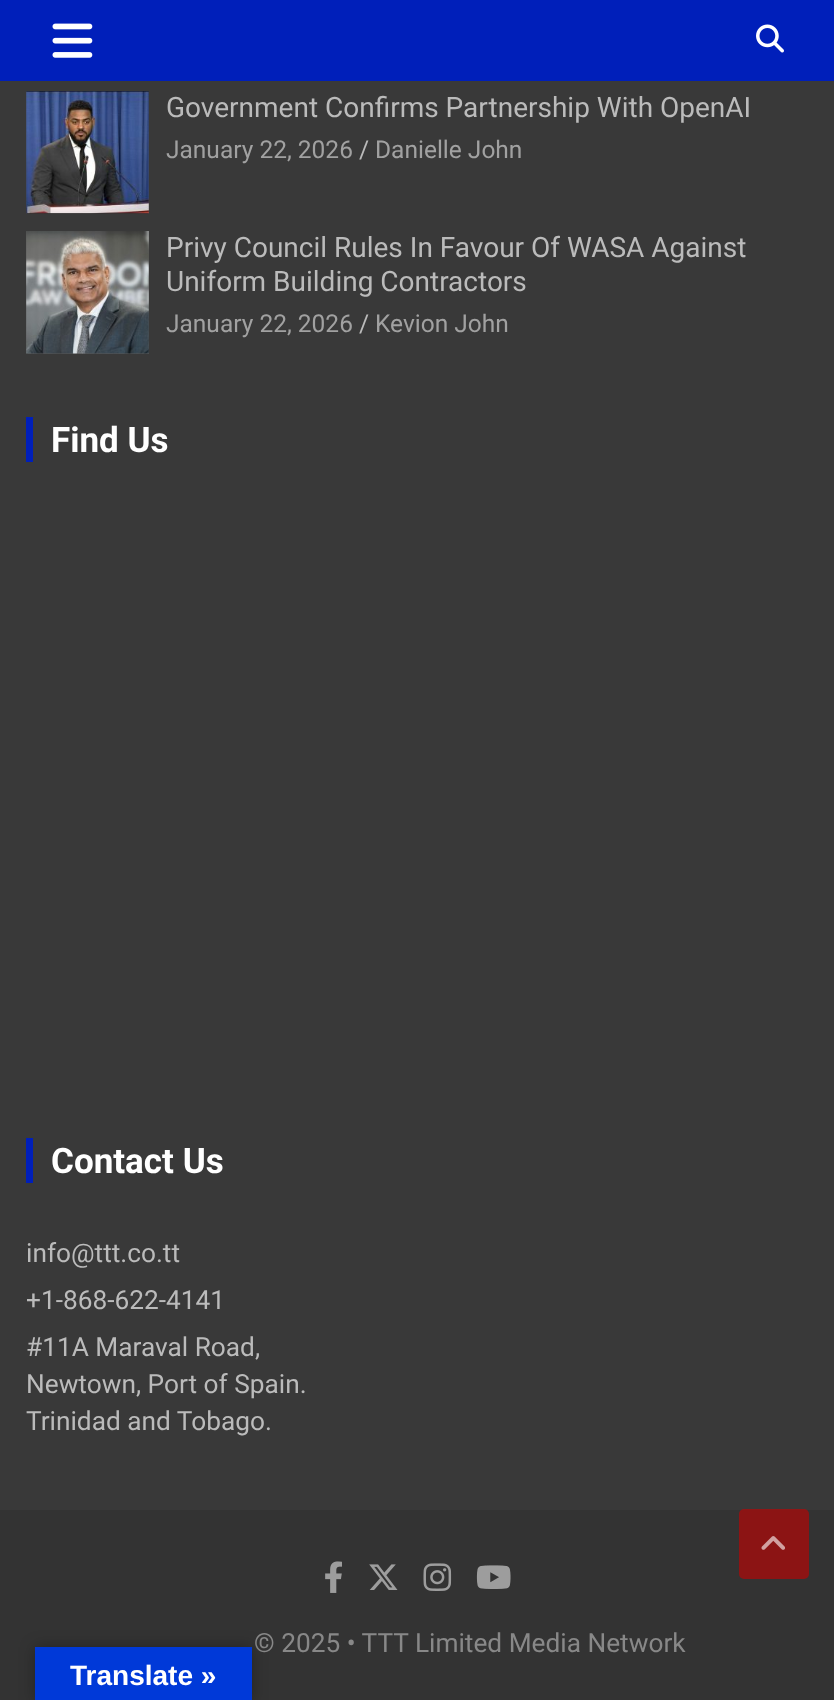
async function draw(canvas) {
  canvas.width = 834
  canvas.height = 1700
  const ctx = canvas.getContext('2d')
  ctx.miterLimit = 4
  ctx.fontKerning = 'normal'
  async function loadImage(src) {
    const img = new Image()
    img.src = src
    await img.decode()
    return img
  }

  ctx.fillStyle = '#393939'
  ctx.fillRect(0, 0, 834, 1700)
  ctx.fillStyle = '#001fba'
  ctx.fillRect(0, 0, 834, 81)
  ctx.drawImage(await loadImage('image0.png'), 52, 23, 41, 35)
  ctx.drawImage(await loadImage('image1.png'), 756, 24, 28, 29)
  ctx.fillStyle = '#555'
  ctx.fillRect(26, 91, 123, 123)
  ctx.drawImage(await loadImage('image2.png'), 26, 91, 123, 123)
  ctx.font = '28px Roboto'
  ctx.fillStyle = '#bbb'
  ctx.fillText('Government Confirms Partnership With OpenAI', 166, 117)
  ctx.font = '24.5px Roboto'
  ctx.fillStyle = '#a1a1a1'
  ctx.fillText('January 22, 2026', 166, 158)
  ctx.fillStyle = '#bbb'
  ctx.fillText('/', 359, 158)
  ctx.fillStyle = '#a1a1a1'
  ctx.fillText('Danielle John', 375, 158)
  ctx.fillStyle = '#555'
  ctx.fillRect(26, 231, 123, 123)
  ctx.drawImage(await loadImage('image3.png'), 26, 231, 123, 123)
  ctx.font = '28px Roboto'
  ctx.fillStyle = '#bbb'
  ctx.fillText('Privy Council Rules In Favour Of WASA Against', 166, 257)
  ctx.fillText('Uniform Building Contractors', 166, 291)
  ctx.font = '24.5px Roboto'
  ctx.fillStyle = '#a1a1a1'
  ctx.fillText('January 22, 2026', 166, 332)
  ctx.fillStyle = '#bbb'
  ctx.fillText('/', 359, 332)
  ctx.fillStyle = '#a1a1a1'
  ctx.fillText('Kevion John', 375, 332)
  ctx.fillStyle = '#001fba'
  ctx.fillRect(26, 417, 7, 45)
  ctx.font = 'bold 35px Roboto'
  ctx.fillStyle = '#fff'
  ctx.fillText('Find Us', 51, 452)
  ctx.fillStyle = '#001fba'
  ctx.fillRect(26, 1138, 7, 45)
  ctx.fillStyle = '#fff'
  ctx.fillText('Contact Us', 51, 1173)
  ctx.font = '26.25px Roboto'
  ctx.fillStyle = '#bbb'
  ctx.fillText('info@ttt.co.tt', 26, 1262)
  ctx.fillText('+1-868-622-4141', 26, 1309)
  ctx.fillText('#11A Maraval Road,', 26, 1356)
  ctx.fillText('Newtown, Port of Spain.', 26, 1393)
  ctx.fillText('Trinidad and Tobago.', 26, 1430)
  ctx.fillStyle = '#333'
  ctx.fillRect(0, 1510, 834, 190)
  ctx.drawImage(await loadImage('image4.png'), 325, 1561, 17, 32)
  ctx.drawImage(await loadImage('image5.png'), 369, 1564, 29, 26)
  ctx.drawImage(await loadImage('image6.png'), 423, 1563, 29, 28)
  ctx.drawImage(await loadImage('image7.png'), 476, 1565, 35, 24)
  ctx.fillStyle = '#888'
  ctx.fillText('© 2025 • TTT Limited Media Network', 254, 1652)
  ctx.fillStyle = '#c8000099'
  ctx.beginPath()
  ctx.roundRect(739, 1509, 70, 70, 5)
  ctx.fill()
  ctx.drawImage(await loadImage('image8.png'), 761, 1536, 24, 14)
  ctx.fillStyle = '#0000004d'
  ctx.filter = 'blur(8px)'
  ctx.beginPath()
  ctx.rect(35, 1647, 217, 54)
  ctx.fill()
  ctx.filter = 'none'
  ctx.fillStyle = '#0039d8'
  ctx.fillRect(35, 1647, 217, 53)
  ctx.font = 'bold 28px Liberation Sans'
  ctx.fillStyle = '#fff'
  ctx.fillText('Translate »', 70, 1685)
}

draw(document.querySelector('canvas'))
